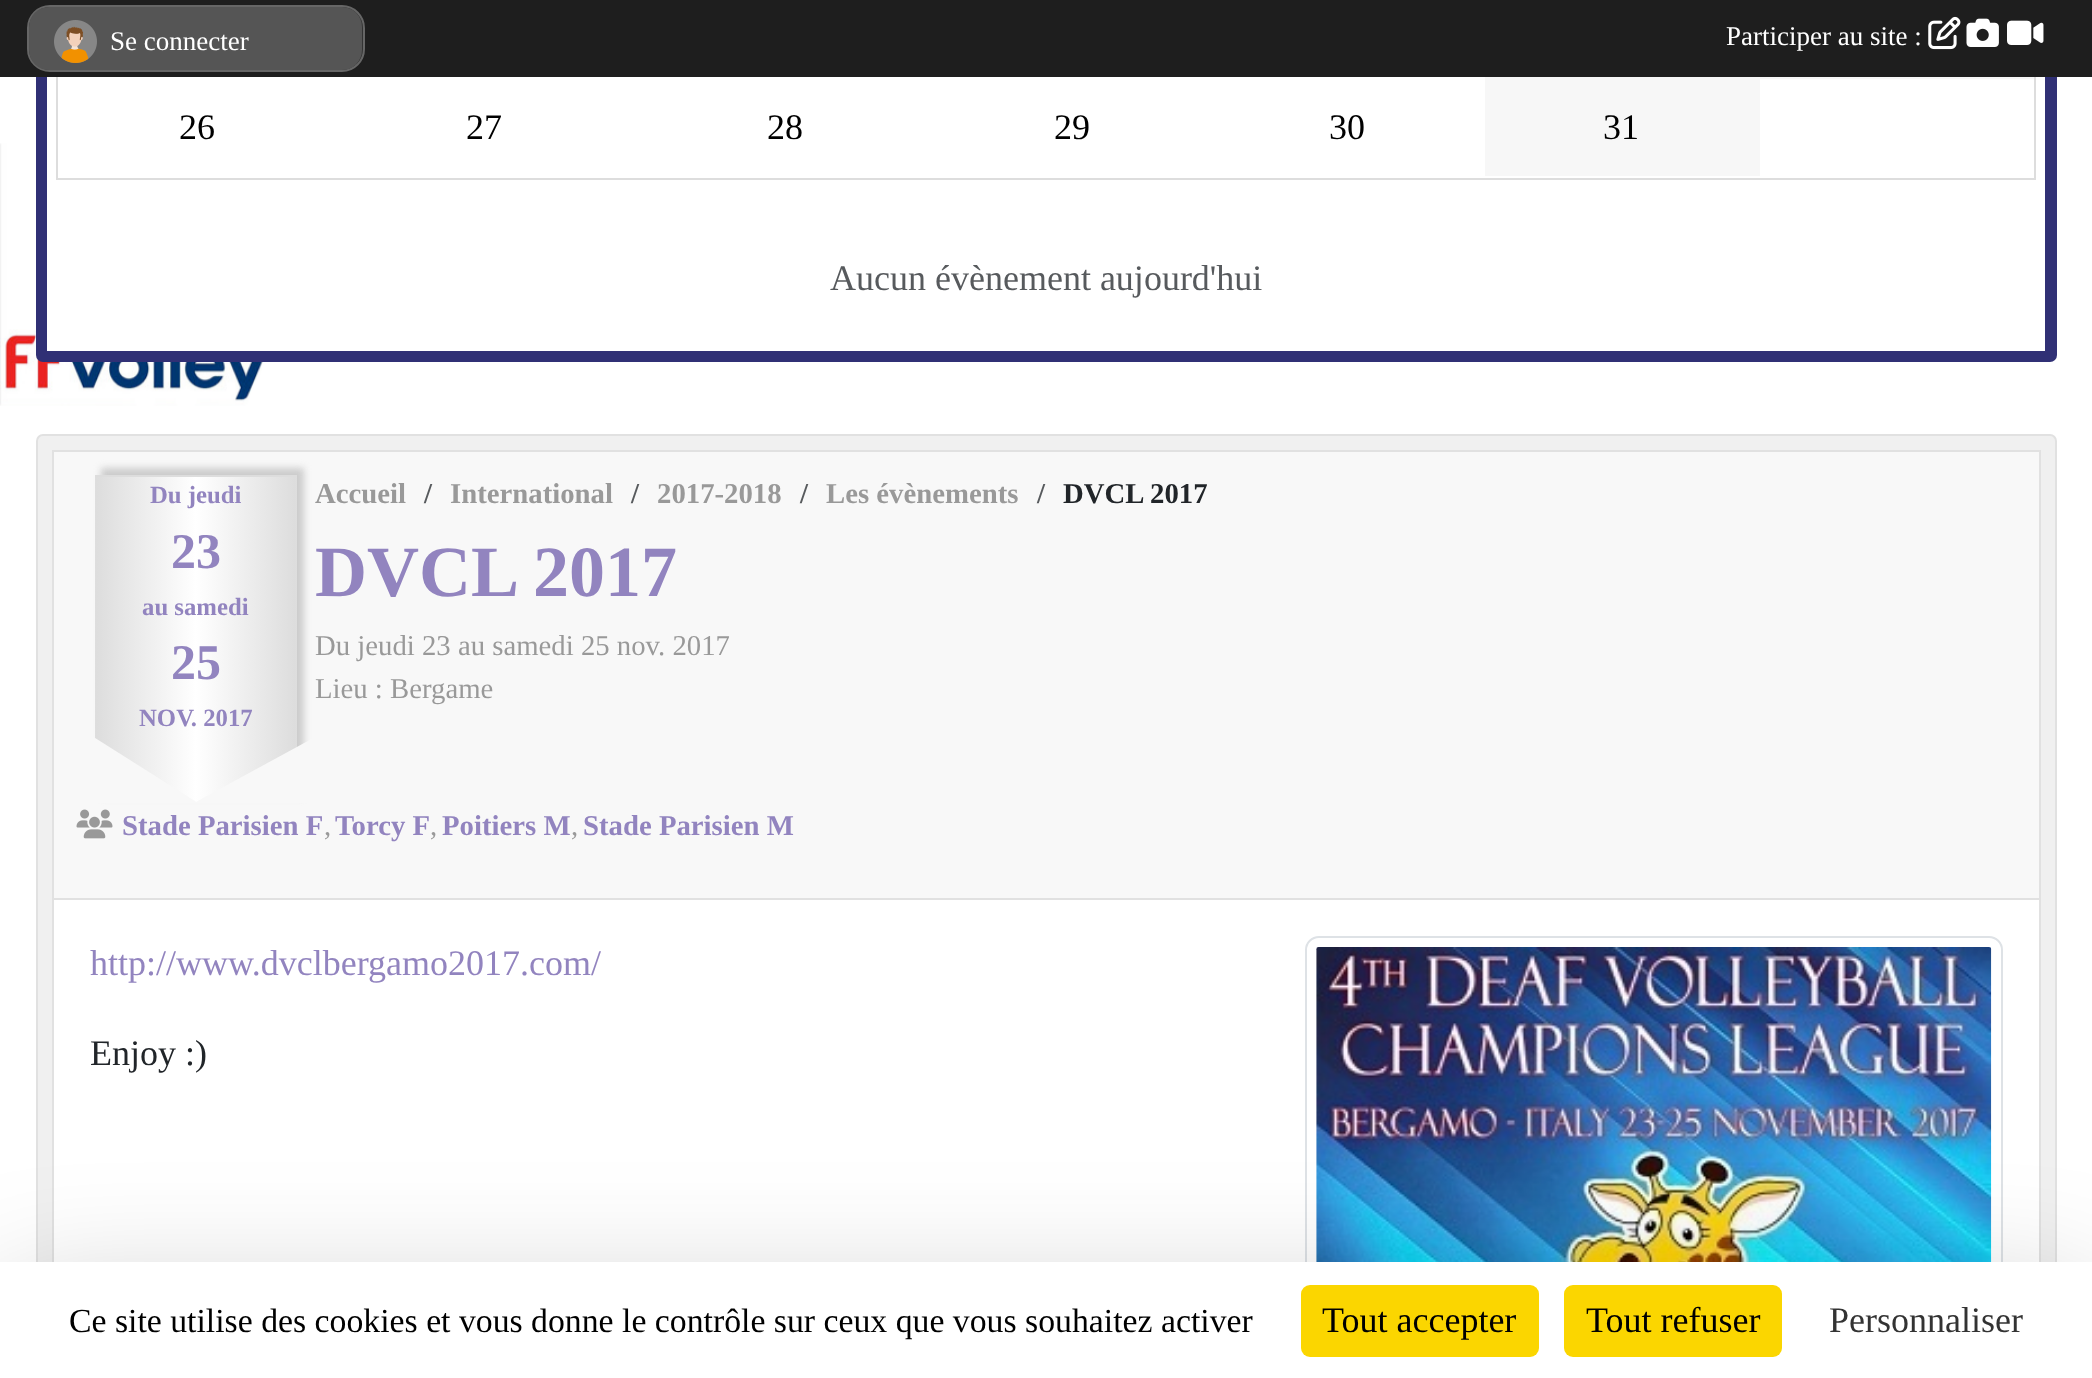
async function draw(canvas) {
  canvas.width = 2092
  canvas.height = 1378
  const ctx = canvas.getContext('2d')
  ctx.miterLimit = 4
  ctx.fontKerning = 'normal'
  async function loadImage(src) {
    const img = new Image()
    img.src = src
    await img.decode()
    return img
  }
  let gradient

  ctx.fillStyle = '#fff'
  ctx.fillRect(0, 0, 2092, 1378)
  ctx.drawImage(await loadImage('image0.png'), 0, 143, 269, 263)
  ctx.fillStyle = '#303075'
  ctx.beginPath()
  ctx.roundRect(36, -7, 2021, 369, 7)
  ctx.fill()
  ctx.fillStyle = '#fff'
  ctx.fillRect(47, 77, 1998, 274)
  ctx.strokeStyle = '#ddd'
  ctx.lineWidth = 2
  ctx.strokeRect(57, -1, 1978, 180)
  ctx.fillStyle = '#1e1e1e'
  ctx.fillRect(0, 0, 2092, 77)
  ctx.fillStyle = '#333'
  ctx.beginPath()
  ctx.roundRect(28, 6, 336, 65, 22)
  ctx.fill()
  ctx.strokeStyle = '#666'
  ctx.stroke()
  ctx.fillStyle = '#555'
  ctx.beginPath()
  ctx.roundRect(29, 7, 333, 63, 20)
  ctx.fill()
  ctx.drawImage(await loadImage('image1.png'), 54, 20, 43, 43)
  ctx.font = '27px Liberation Serif'
  ctx.fillStyle = '#fff'
  ctx.fillText('Se connecter', 110, 50)
  ctx.fillText('Participer au site :', 1726, 45)
  ctx.drawImage(await loadImage('image2.png'), 1928, 16, 33, 34)
  ctx.drawImage(await loadImage('image3.png'), 1966, 18, 33, 29)
  ctx.drawImage(await loadImage('image4.png'), 2007, 20, 37, 25)
  ctx.fillStyle = '#f7f7f7'
  ctx.fillRect(1485, 77, 549, 2)
  ctx.font = '36px Liberation Serif'
  ctx.fillStyle = '#000'
  ctx.fillText('26', 179, 139)
  ctx.fillText('27', 466, 139)
  ctx.fillText('28', 767, 139)
  ctx.fillText('29', 1054, 139)
  ctx.fillText('30', 1329, 139)
  ctx.fillStyle = '#f7f7f7'
  ctx.fillRect(1485, 79, 275, 97)
  ctx.fillStyle = '#000'
  ctx.fillText('31', 1603, 139)
  ctx.fillStyle = '#575a5d'
  ctx.fillText('Aucun évènement aujourd\'hui', 830, 290)
  ctx.fillStyle = '#f0f0f0'
  ctx.beginPath()
  ctx.roundRect(37, 435, 2019, 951, 6)
  ctx.fill()
  ctx.strokeStyle = '#e1e1e1'
  ctx.stroke()
  ctx.fillStyle = '#fff'
  ctx.fillRect(54, 900, 1985, 362)
  ctx.strokeRect(53, 451, 1987, 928)
  ctx.fillStyle = '#f8f8f8'
  ctx.fillRect(54, 452, 1985, 446)
  ctx.fillStyle = '#e1e1e1'
  ctx.fillRect(54, 898, 1985, 2)
  ctx.fillStyle = '#ccc'
  ctx.filter = 'blur(3.5px)'
  ctx.beginPath()
  ctx.rect(101, 468, 203, 329)
  ctx.fill()
  ctx.filter = 'none'
  gradient = ctx.createLinearGradient(-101, 640, 97, 640)
  gradient.addColorStop(0, '#ddd')
  gradient.addColorStop(0.5, '#fff')
  gradient.addColorStop(1, '#ddd')
  ctx.fillStyle = gradient
  ctx.fillRect(95, 475, 2, 265)
  gradient = ctx.createLinearGradient(97, 640, 295, 640)
  gradient.addColorStop(0, '#ddd')
  gradient.addColorStop(0.5, '#fff')
  gradient.addColorStop(1, '#ddd')
  ctx.fillStyle = gradient
  ctx.fillRect(97, 477, 198, 325)
  gradient = ctx.createLinearGradient(295, 640, 493, 640)
  gradient.addColorStop(0, '#ddd')
  gradient.addColorStop(0.5, '#fff')
  gradient.addColorStop(1, '#ddd')
  ctx.fillStyle = gradient
  ctx.fillRect(295, 475, 2, 273)
  ctx.fillStyle = '#ddd'
  ctx.fillRect(95, 475, 202, 2)
  ctx.font = 'bold 24.75px Liberation Serif'
  ctx.fillStyle = '#9284bf'
  ctx.fillText('Du jeudi', 150, 503)
  ctx.font = 'bold 50px Liberation Serif'
  ctx.fillText('23', 171, 568)
  ctx.font = 'bold 24.75px Liberation Serif'
  ctx.fillText('au samedi', 142, 615)
  ctx.font = 'bold 50px Liberation Serif'
  ctx.fillText('25', 171, 679)
  ctx.font = 'bold 24.75px Liberation Serif'
  ctx.fillText('NOV. 2017', 139, 726)
  ctx.fillStyle = '#f8f8f8'
  ctx.beginPath()
  ctx.moveTo(92, 803)
  ctx.lineTo(92, 736)
  ctx.lineTo(198, 803)
  ctx.closePath()
  ctx.fill()
  ctx.beginPath()
  ctx.moveTo(317, 736)
  ctx.lineTo(317, 803)
  ctx.lineTo(194, 803)
  ctx.closePath()
  ctx.fill()
  ctx.font = 'bold 28.75px Liberation Serif'
  ctx.fillStyle = '#999'
  ctx.fillText('Accueil', 315, 503)
  ctx.fillStyle = '#575a5d'
  ctx.fillText('/', 424, 503)
  ctx.fillStyle = '#999'
  ctx.fillText('International', 450, 503)
  ctx.fillStyle = '#575a5d'
  ctx.fillText('/', 631, 503)
  ctx.fillStyle = '#999'
  ctx.fillText('2017-2018', 657, 503)
  ctx.fillStyle = '#575a5d'
  ctx.fillText('/', 800, 503)
  ctx.fillStyle = '#999'
  ctx.fillText('Les évènements', 826, 503)
  ctx.fillStyle = '#575a5d'
  ctx.fillText('/', 1037, 503)
  ctx.fillStyle = '#212529'
  ctx.fillText('DVCL 2017', 1063, 503)
  ctx.font = 'bold 72px Liberation Serif'
  ctx.fillStyle = '#9284bf'
  ctx.fillText('DVCL 2017', 315, 596)
  ctx.font = '28.75px Liberation Serif'
  ctx.fillStyle = '#999'
  ctx.fillText('Du jeudi 23 au samedi 25 nov. 2017', 315, 655)
  ctx.fillText('Lieu : Bergame', 315, 698)
  ctx.drawImage(await loadImage('image5.png'), 76, 809, 37, 30)
  ctx.font = 'bold 28.75px Liberation Serif'
  ctx.fillStyle = '#9284bf'
  ctx.fillText('Stade Parisien F', 122, 835)
  ctx.font = '28.75px Liberation Serif'
  ctx.fillStyle = '#999'
  ctx.fillText(',', 324, 835)
  ctx.font = 'bold 28.75px Liberation Serif'
  ctx.fillStyle = '#9284bf'
  ctx.fillText('Torcy F', 335, 835)
  ctx.font = '28.75px Liberation Serif'
  ctx.fillStyle = '#999'
  ctx.fillText(',', 430, 835)
  ctx.font = 'bold 28.75px Liberation Serif'
  ctx.fillStyle = '#9284bf'
  ctx.fillText('Poitiers M', 442, 835)
  ctx.font = '28.75px Liberation Serif'
  ctx.fillStyle = '#999'
  ctx.fillText(',', 571, 835)
  ctx.font = 'bold 28.75px Liberation Serif'
  ctx.fillStyle = '#9284bf'
  ctx.fillText('Stade Parisien M', 583, 835)
  ctx.font = '36px Liberation Serif'
  ctx.fillText('http://www.dvclbergamo2017.com/', 90, 975)
  ctx.beginPath()
  ctx.roundRect(1306, 937, 696, 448, 13)
  ctx.strokeStyle = '#dee2e6'
  ctx.stroke()
  ctx.drawImage(await loadImage('image6.png'), 1316, 947, 676, 315)
  ctx.fillStyle = '#212529'
  ctx.fillText('Enjoy :)', 90, 1065)
  ctx.fillStyle = '#00000040'
  ctx.filter = 'blur(67.5px)'
  ctx.beginPath()
  ctx.rect(0, 1307, 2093, 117)
  ctx.fill()
  ctx.filter = 'none'
  ctx.fillStyle = '#fff'
  ctx.fillRect(0, 1262, 2092, 116)
  ctx.font = '33.75px Liberation Serif'
  ctx.fillStyle = '#000'
  ctx.fillText('Ce site utilise des cookies et vous donne le contrôle sur ceux que vous souhaitez activer', 69, 1332)
  ctx.fillStyle = '#fbd600'
  ctx.beginPath()
  ctx.roundRect(1301, 1285, 238, 72, 9)
  ctx.fill()
  ctx.font = '36px Liberation Serif'
  ctx.fillStyle = '#000'
  ctx.fillText('Tout accepter', 1322, 1332)
  ctx.fillStyle = '#fbd600'
  ctx.beginPath()
  ctx.roundRect(1564, 1285, 218, 72, 9)
  ctx.fill()
  ctx.fillStyle = '#000'
  ctx.fillText('Tout refuser', 1586, 1332)
  ctx.fillStyle = '#333'
  ctx.fillText('Personnaliser', 1829, 1332)
}

draw(document.querySelector('canvas'))
